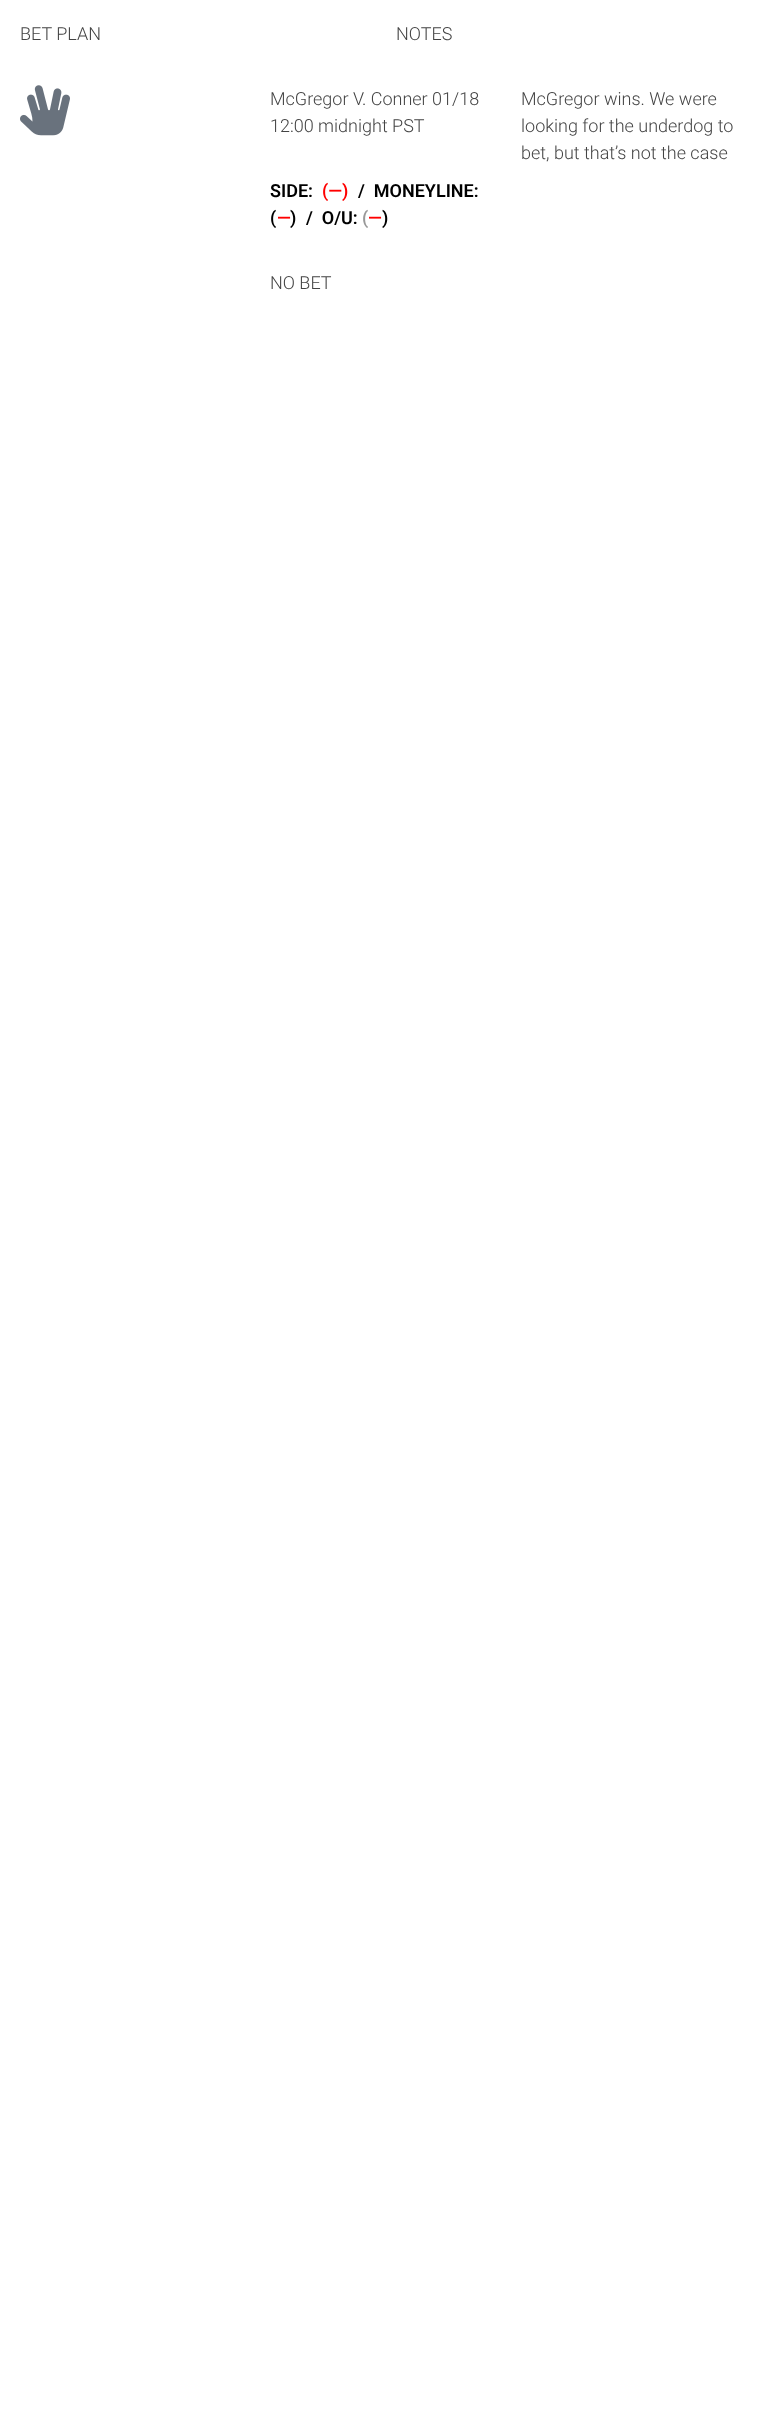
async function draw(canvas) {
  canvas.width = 771
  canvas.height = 2419
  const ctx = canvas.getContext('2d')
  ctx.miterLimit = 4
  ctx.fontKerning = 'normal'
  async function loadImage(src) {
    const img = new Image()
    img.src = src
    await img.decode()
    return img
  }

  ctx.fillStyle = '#fff'
  ctx.fillRect(0, 0, 771, 2419)
  ctx.font = '300 18px Roboto'
  ctx.fillStyle = '#444'
  ctx.fillText('BET PLAN', 20, 40)
  ctx.fillText('NOTES', 396, 40)
  ctx.drawImage(await loadImage('image0.png'), 20, 85, 50, 51)
  ctx.fillText('McGregor V. Conner 01/18', 270, 105)
  ctx.fillText('12:00 midnight PST', 270, 132)
  ctx.font = '600 18px Roboto'
  ctx.fillStyle = '#000'
  ctx.fillText('SIDE:', 270, 197)
  ctx.fillStyle = '#f00'
  ctx.fillText('(—)', 322, 197)
  ctx.fillStyle = '#000'
  ctx.fillText('/  MONEYLINE:', 358, 197)
  ctx.fillText('(', 270, 224)
  ctx.fillStyle = '#f00'
  ctx.fillText('—', 277, 224)
  ctx.fillStyle = '#000'
  ctx.fillText(')', 290, 224)
  ctx.fillText('/  O/U:', 306, 224)
  ctx.fillStyle = '#999'
  ctx.fillText('(', 362, 224)
  ctx.fillStyle = '#f00'
  ctx.fillText('—', 368, 224)
  ctx.fillStyle = '#000'
  ctx.fillText(')', 382, 224)
  ctx.font = '300 18px Roboto'
  ctx.fillStyle = '#444'
  ctx.fillText('NO BET', 270, 289)
  ctx.fillText('McGregor wins. We were', 521, 105)
  ctx.fillText('looking for the underdog to', 521, 132)
  ctx.fillText('bet, but that’s not the case', 521, 159)
}

draw(document.querySelector('canvas'))
